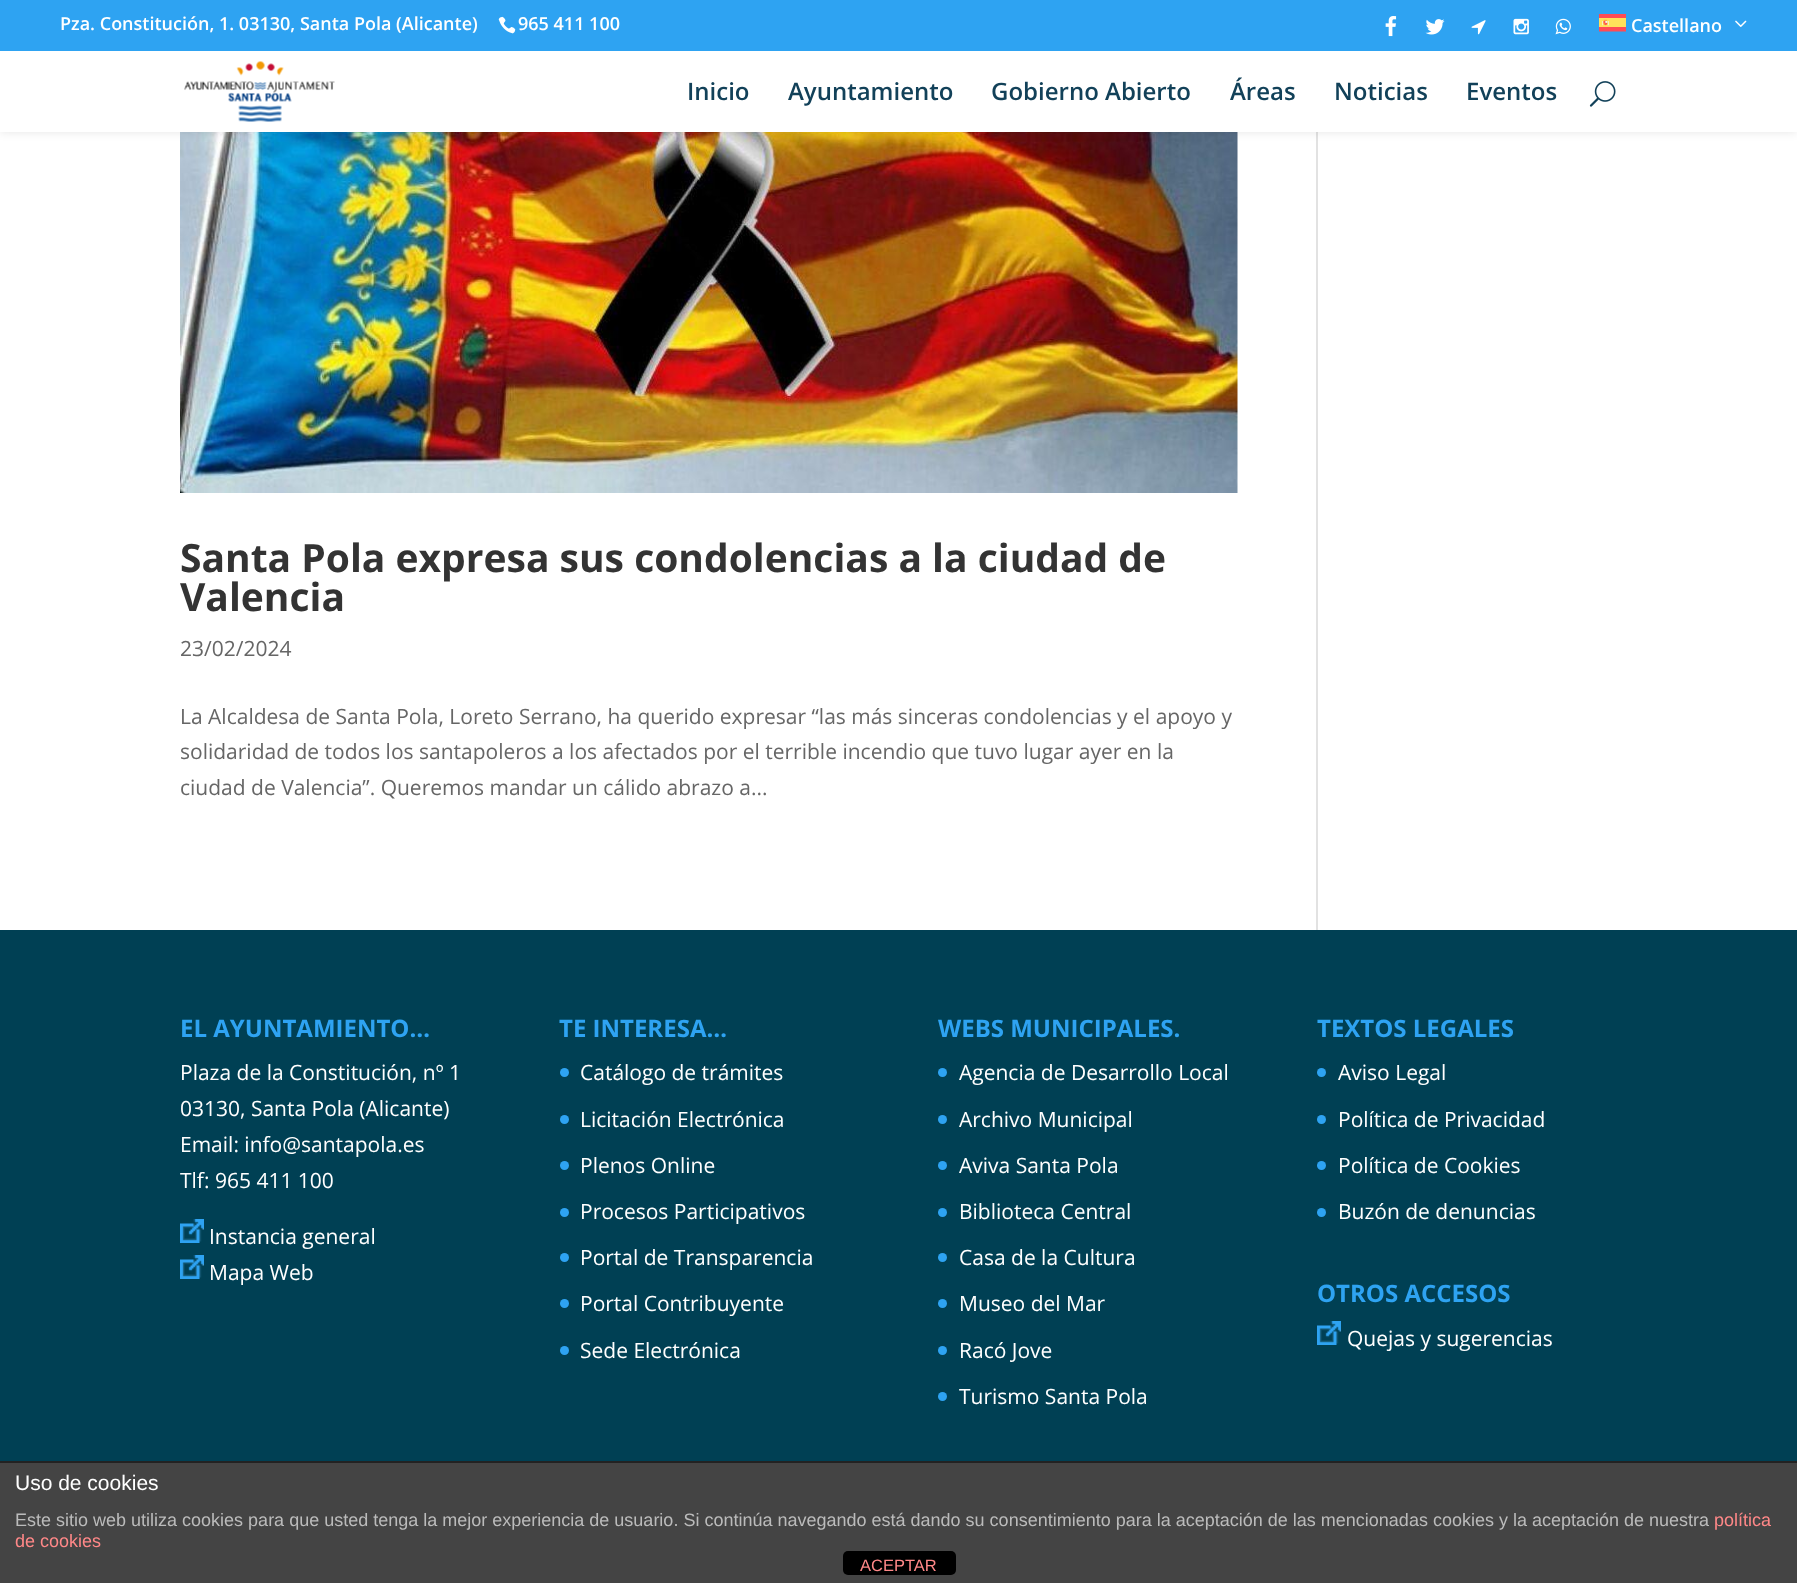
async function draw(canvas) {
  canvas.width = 1797
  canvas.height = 1583
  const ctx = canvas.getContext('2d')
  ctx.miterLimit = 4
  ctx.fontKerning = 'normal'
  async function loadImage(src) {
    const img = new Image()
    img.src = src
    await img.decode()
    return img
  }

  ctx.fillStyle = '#fff'
  ctx.fillRect(0, 0, 1797, 1583)
  ctx.drawImage(await loadImage('image10.png'), 180, 132, 1058, 361)
  ctx.fillStyle = '#e2e2e2'
  ctx.fillRect(1316, 132, 2, 798)
  ctx.fillStyle = '#0000001a'
  ctx.filter = 'blur(5px)'
  ctx.beginPath()
  ctx.rect(0, 51, 1797, 81)
  ctx.fill()
  ctx.filter = 'none'
  ctx.fillStyle = '#2ea3f2'
  ctx.fillRect(0, 0, 1797, 51)
  ctx.font = '600 18px Open Sans'
  ctx.fillStyle = '#fff'
  ctx.fillText('Pza. Constitución, 1. 03130, Santa Pola (Alicante)', 60, 30)
  ctx.drawImage(await loadImage('image0.png'), 498, 16, 18, 18)
  ctx.fillText('965 411 100', 518, 30)
  ctx.drawImage(await loadImage('image1.png'), 1385, 16, 12, 21)
  ctx.drawImage(await loadImage('image2.png'), 1425, 19, 20, 16)
  ctx.drawImage(await loadImage('image3.png'), 1471, 20, 15, 15)
  ctx.drawImage(await loadImage('image4.png'), 1513, 18, 16, 17)
  ctx.drawImage(await loadImage('image5.png'), 1555, 18, 16, 17)
  ctx.drawImage(await loadImage('image6.png'), 1599, 14, 27, 18)
  ctx.fillText('Castellano', 1631, 32)
  ctx.drawImage(await loadImage('image7.png'), 1735, 20, 12, 7)
  ctx.fillRect(0, 51, 1797, 81)
  ctx.drawImage(await loadImage('image8.png'), 184, 61, 151, 61)
  ctx.font = '600 24px Open Sans'
  ctx.fillStyle = '#124159'
  ctx.fillText('Inicio', 687, 100)
  ctx.fillText('Ayuntamiento', 788, 100)
  ctx.fillText('Gobierno Abierto', 991, 100)
  ctx.fillText('Áreas', 1230, 100)
  ctx.fillText('Noticias', 1334, 100)
  ctx.fillText('Eventos', 1466, 100)
  ctx.drawImage(await loadImage('image9.png'), 1589, 81, 27, 26)
  ctx.font = 'bold 39px Open Sans'
  ctx.fillStyle = '#333'
  ctx.fillText('Santa Pola expresa sus condolencias a la ciudad de', 180, 572)
  ctx.fillText('Valencia', 180, 611)
  ctx.font = '21px Open Sans'
  ctx.fillStyle = '#666'
  ctx.fillText('23/02/2024', 180, 656)
  ctx.fillText('La Alcaldesa de Santa Pola, Loreto Serrano, ha querido expresar “las más sinceras condolencias y el apoyo y', 180, 724)
  ctx.fillText('solidaridad de todos los santapoleros a los afectados por el terrible incendio que tuvo lugar ayer en la', 180, 759)
  ctx.fillText('ciudad de Valencia”. Queremos mandar un cálido abrazo a...', 180, 795)
  ctx.fillStyle = '#004054'
  ctx.fillRect(0, 930, 1797, 531)
  ctx.font = 'bold 24px Open Sans'
  ctx.fillStyle = '#2ea3f2'
  ctx.fillText('EL AYUNTAMIENTO…', 180, 1037)
  ctx.font = '21px Open Sans'
  ctx.fillStyle = '#fff'
  ctx.fillText('Plaza de la Constitución, nº 1', 180, 1080)
  ctx.fillText('03130, Santa Pola (Alicante)', 180, 1116)
  ctx.fillText('Email: info@santapola.es', 180, 1152)
  ctx.fillText('Tlf: 965 411 100', 180, 1188)
  ctx.drawImage(await loadImage('image11.png'), 180, 1219, 24, 24)
  ctx.fillText('Instancia general', 209, 1244)
  ctx.drawImage(await loadImage('image11.png'), 180, 1255, 24, 24)
  ctx.fillText('Mapa Web', 209, 1280)
  ctx.font = 'bold 24px Open Sans'
  ctx.fillStyle = '#2ea3f2'
  ctx.fillText('TE INTERESA…', 559, 1037)
  ctx.beginPath()
  ctx.arc(564.5, 1072.5, 4.5, 0, 2 * Math.PI)
  ctx.fill()
  ctx.font = '21px Open Sans'
  ctx.fillStyle = '#fff'
  ctx.fillText('Catálogo de trámites', 580, 1080)
  ctx.fillStyle = '#2ea3f2'
  ctx.beginPath()
  ctx.arc(564.5, 1119.5, 4.5, 0, 2 * Math.PI)
  ctx.fill()
  ctx.fillStyle = '#fff'
  ctx.fillText('Licitación Electrónica', 580, 1127)
  ctx.fillStyle = '#2ea3f2'
  ctx.beginPath()
  ctx.arc(564.5, 1165.5, 4.5, 0, 2 * Math.PI)
  ctx.fill()
  ctx.fillStyle = '#fff'
  ctx.fillText('Plenos Online', 580, 1173)
  ctx.fillStyle = '#2ea3f2'
  ctx.beginPath()
  ctx.arc(564.5, 1212.5, 4.5, 0, 2 * Math.PI)
  ctx.fill()
  ctx.fillStyle = '#fff'
  ctx.fillText('Procesos Participativos', 580, 1219)
  ctx.fillStyle = '#2ea3f2'
  ctx.beginPath()
  ctx.arc(564.5, 1257.5, 4.5, 0, 2 * Math.PI)
  ctx.fill()
  ctx.fillStyle = '#fff'
  ctx.fillText('Portal de Transparencia', 580, 1265)
  ctx.fillStyle = '#2ea3f2'
  ctx.beginPath()
  ctx.arc(564.5, 1303.5, 4.5, 0, 2 * Math.PI)
  ctx.fill()
  ctx.fillStyle = '#fff'
  ctx.fillText('Portal Contribuyente', 580, 1311)
  ctx.fillStyle = '#2ea3f2'
  ctx.beginPath()
  ctx.arc(564.5, 1350.5, 4.5, 0, 2 * Math.PI)
  ctx.fill()
  ctx.fillStyle = '#fff'
  ctx.fillText('Sede Electrónica', 580, 1358)
  ctx.font = 'bold 24px Open Sans'
  ctx.fillStyle = '#2ea3f2'
  ctx.fillText('WEBS MUNICIPALES.', 938, 1037)
  ctx.beginPath()
  ctx.arc(942.5, 1072.5, 4.5, 0, 2 * Math.PI)
  ctx.fill()
  ctx.font = '21px Open Sans'
  ctx.fillStyle = '#fff'
  ctx.fillText('Agencia de Desarrollo Local', 959, 1080)
  ctx.fillStyle = '#2ea3f2'
  ctx.beginPath()
  ctx.arc(942.5, 1119.5, 4.5, 0, 2 * Math.PI)
  ctx.fill()
  ctx.fillStyle = '#fff'
  ctx.fillText('Archivo Municipal', 959, 1127)
  ctx.fillStyle = '#2ea3f2'
  ctx.beginPath()
  ctx.arc(942.5, 1165.5, 4.5, 0, 2 * Math.PI)
  ctx.fill()
  ctx.fillStyle = '#fff'
  ctx.fillText('Aviva Santa Pola', 959, 1173)
  ctx.fillStyle = '#2ea3f2'
  ctx.beginPath()
  ctx.arc(942.5, 1212.5, 4.5, 0, 2 * Math.PI)
  ctx.fill()
  ctx.fillStyle = '#fff'
  ctx.fillText('Biblioteca Central', 959, 1219)
  ctx.fillStyle = '#2ea3f2'
  ctx.beginPath()
  ctx.arc(942.5, 1257.5, 4.5, 0, 2 * Math.PI)
  ctx.fill()
  ctx.fillStyle = '#fff'
  ctx.fillText('Casa de la Cultura', 959, 1265)
  ctx.fillStyle = '#2ea3f2'
  ctx.beginPath()
  ctx.arc(942.5, 1303.5, 4.5, 0, 2 * Math.PI)
  ctx.fill()
  ctx.fillStyle = '#fff'
  ctx.fillText('Museo del Mar', 959, 1311)
  ctx.fillStyle = '#2ea3f2'
  ctx.beginPath()
  ctx.arc(942.5, 1350.5, 4.5, 0, 2 * Math.PI)
  ctx.fill()
  ctx.fillStyle = '#fff'
  ctx.fillText('Racó Jove', 959, 1358)
  ctx.fillStyle = '#2ea3f2'
  ctx.beginPath()
  ctx.arc(942.5, 1396.5, 4.5, 0, 2 * Math.PI)
  ctx.fill()
  ctx.fillStyle = '#fff'
  ctx.fillText('Turismo Santa Pola', 959, 1404)
  ctx.font = 'bold 24px Open Sans'
  ctx.fillStyle = '#2ea3f2'
  ctx.fillText('TEXTOS LEGALES', 1317, 1037)
  ctx.beginPath()
  ctx.arc(1321.5, 1072.5, 4.5, 0, 2 * Math.PI)
  ctx.fill()
  ctx.font = '21px Open Sans'
  ctx.fillStyle = '#fff'
  ctx.fillText('Aviso Legal', 1338, 1080)
  ctx.fillStyle = '#2ea3f2'
  ctx.beginPath()
  ctx.arc(1321.5, 1119.5, 4.5, 0, 2 * Math.PI)
  ctx.fill()
  ctx.fillStyle = '#fff'
  ctx.fillText('Política de Privacidad', 1338, 1127)
  ctx.fillStyle = '#2ea3f2'
  ctx.beginPath()
  ctx.arc(1321.5, 1165.5, 4.5, 0, 2 * Math.PI)
  ctx.fill()
  ctx.fillStyle = '#fff'
  ctx.fillText('Política de Cookies', 1338, 1173)
  ctx.fillStyle = '#2ea3f2'
  ctx.beginPath()
  ctx.arc(1321.5, 1212.5, 4.5, 0, 2 * Math.PI)
  ctx.fill()
  ctx.fillStyle = '#fff'
  ctx.fillText('Buzón de denuncias', 1338, 1219)
  ctx.font = 'bold 24px Open Sans'
  ctx.fillStyle = '#2ea3f2'
  ctx.fillText('OTROS ACCESOS', 1317, 1302)
  ctx.drawImage(await loadImage('image11.png'), 1317, 1321, 24, 24)
  ctx.font = '21px Open Sans'
  ctx.fillStyle = '#fff'
  ctx.fillText('Quejas y sugerencias', 1347, 1346)
  ctx.fillStyle = '#444'
  ctx.fillRect(0, 1463, 1797, 120)
  ctx.fillStyle = '#222'
  ctx.fillRect(0, 1461, 1797, 2)
  ctx.font = '21px Liberation Sans'
  ctx.fillStyle = '#fff'
  ctx.fillText('Uso de cookies', 15, 1490)
  ctx.font = '18px Liberation Sans'
  ctx.fillStyle = '#bbb'
  ctx.fillText('Este sitio web utiliza cookies para que usted tenga la mejor experiencia de usuario. Si continúa navegando está dando su consentimiento para la aceptación de las mencionadas cookies y la aceptación de nuestra', 15, 1526)
  ctx.fillStyle = '#f88'
  ctx.fillText('política', 1714, 1526)
  ctx.fillText('de cookies', 15, 1547)
  ctx.fillStyle = '#000'
  ctx.beginPath()
  ctx.roundRect(843, 1551, 113, 24, 5)
  ctx.fill()
  ctx.font = '16.5px Liberation Sans'
  ctx.fillStyle = '#f88'
  ctx.fillText('ACEPTAR', 860, 1571)
}

draw(document.querySelector('canvas'))
